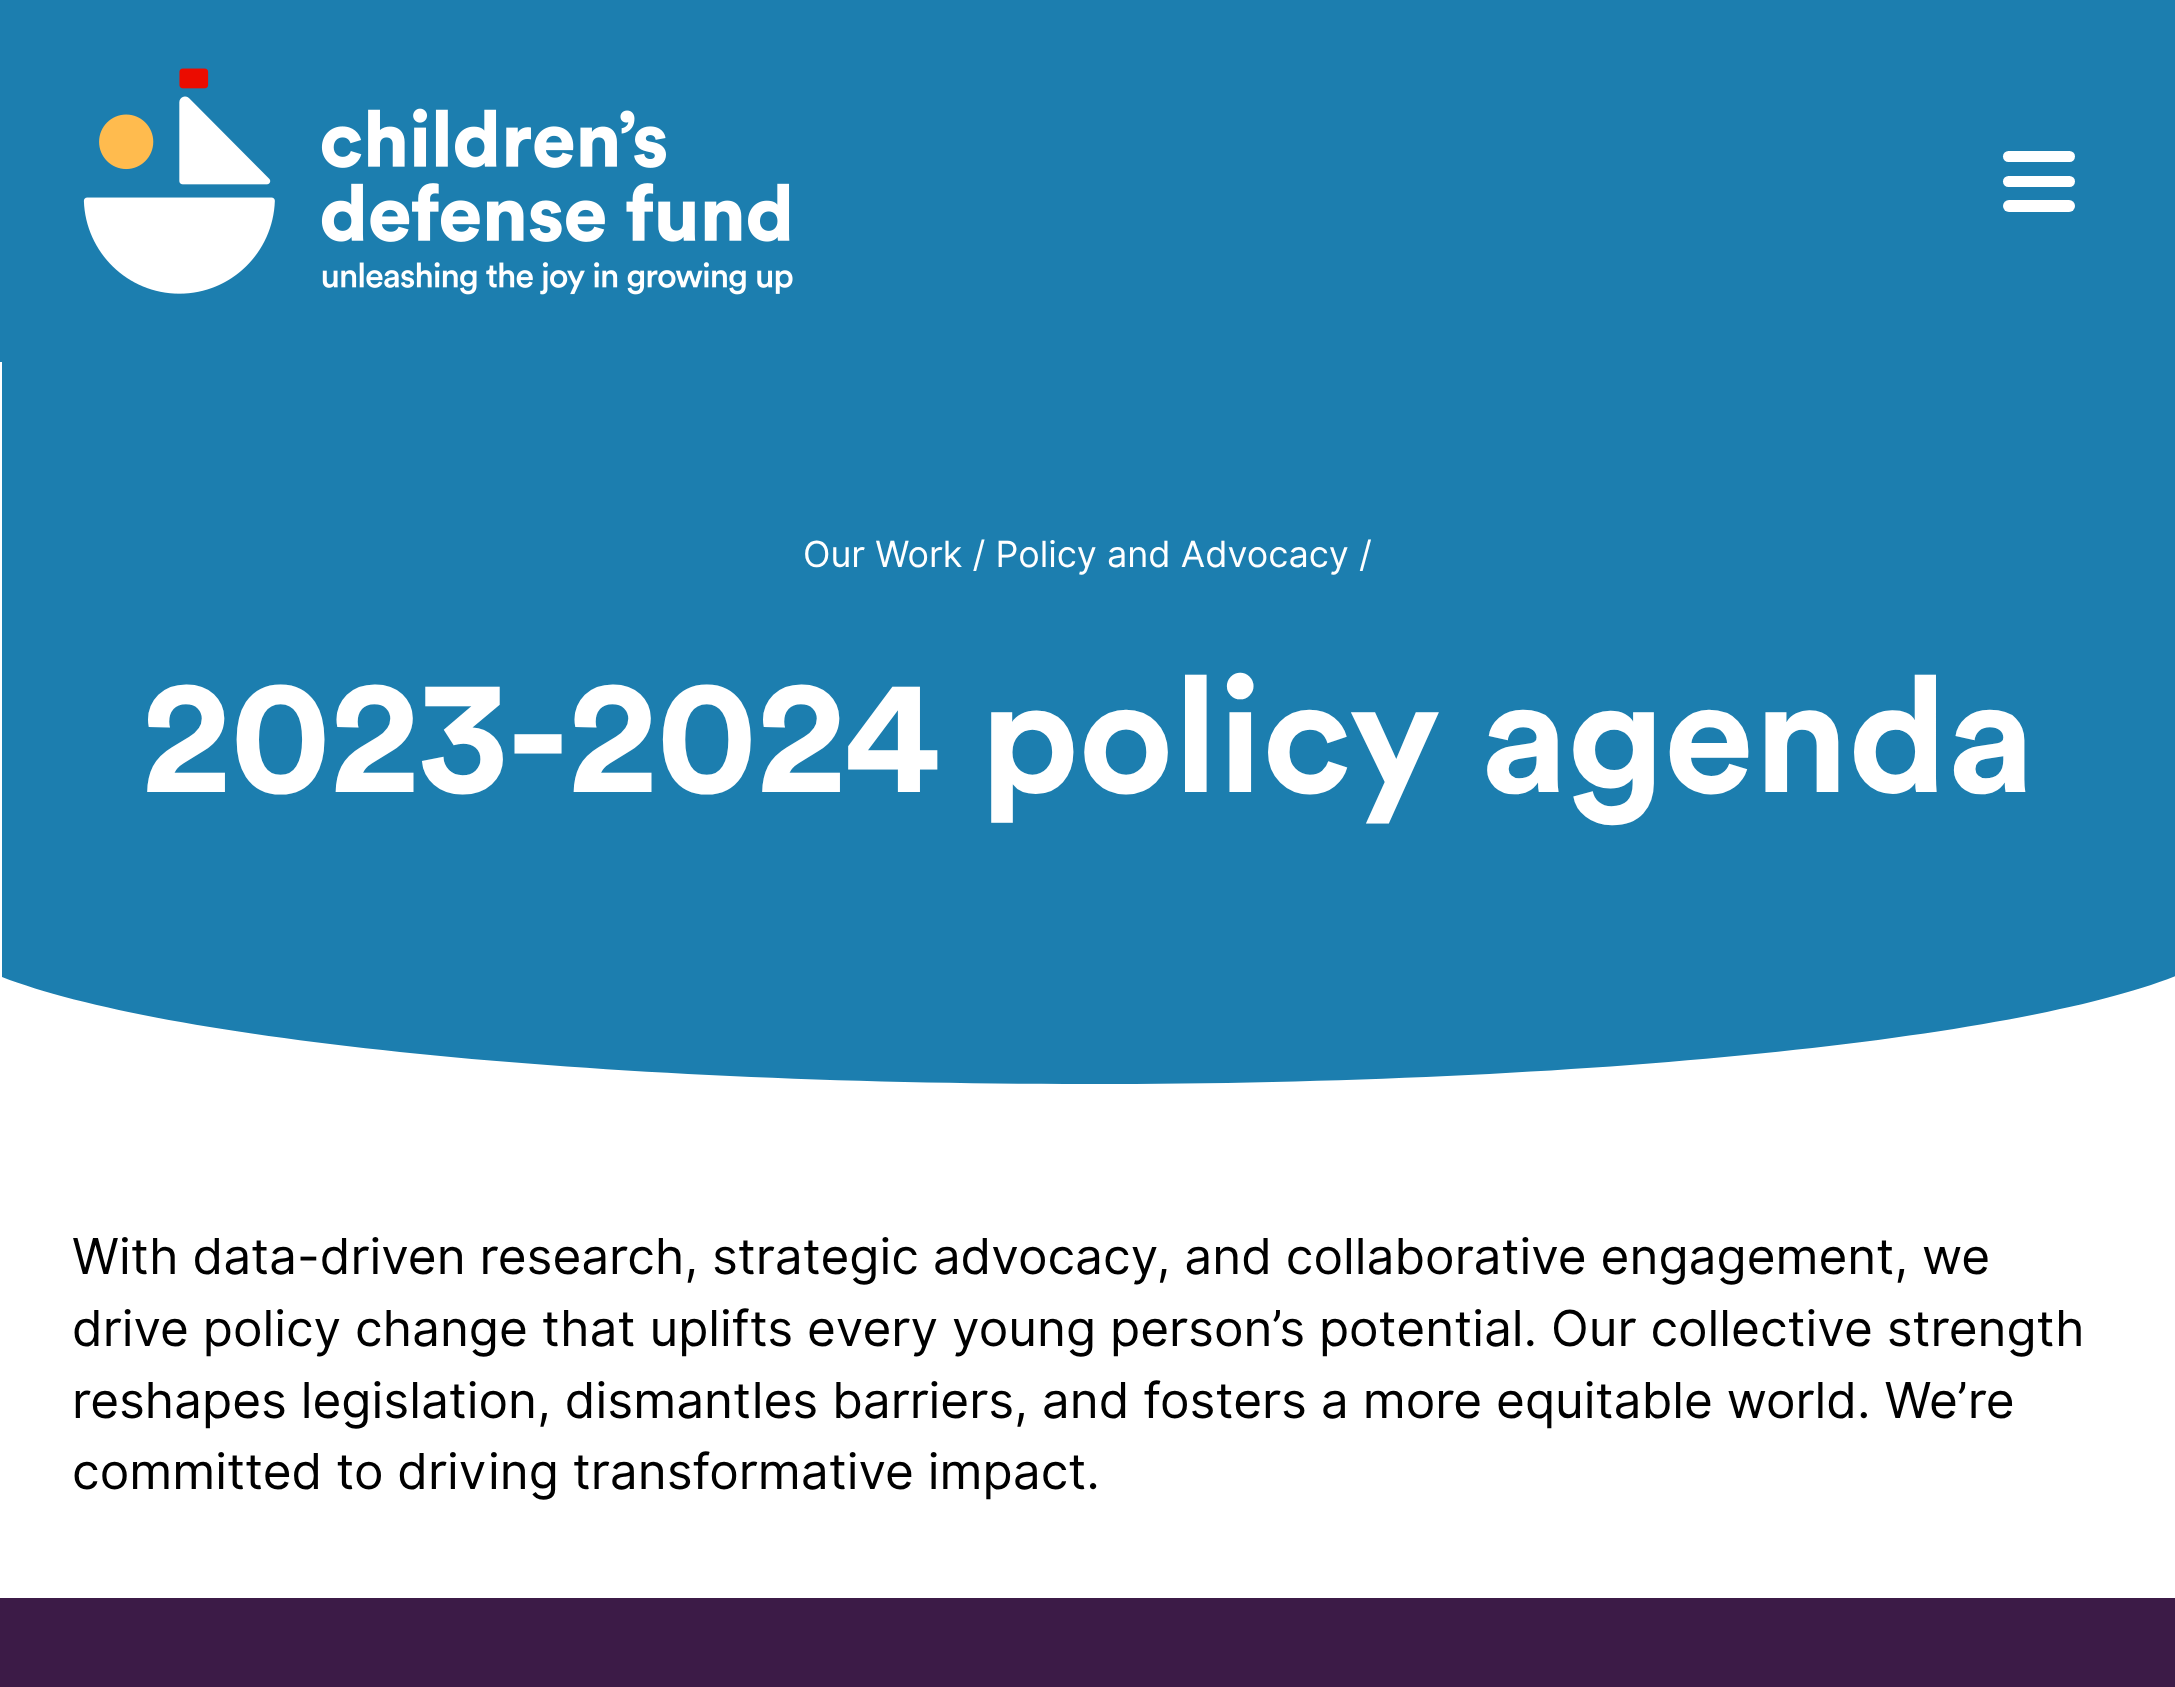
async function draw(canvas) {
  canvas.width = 2175
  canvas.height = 1687
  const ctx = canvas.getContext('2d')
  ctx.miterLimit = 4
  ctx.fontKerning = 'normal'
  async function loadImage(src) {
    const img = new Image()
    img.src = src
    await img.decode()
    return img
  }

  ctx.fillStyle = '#fff'
  ctx.fillRect(0, 0, 2175, 1687)
  ctx.fillStyle = '#1c7eaf'
  ctx.fillRect(0, 0, 2175, 362)
  ctx.drawImage(await loadImage('image0.png'), 83, 68, 710, 227)
  ctx.fillStyle = '#fff'
  ctx.beginPath()
  ctx.roundRect(2003, 176, 72, 11, 5.5)
  ctx.fill()
  ctx.beginPath()
  ctx.roundRect(2003, 151, 72, 11, 5.5)
  ctx.fill()
  ctx.beginPath()
  ctx.roundRect(2003, 200, 72, 12, 6)
  ctx.fill()
  ctx.fillStyle = '#1c7eaf'
  ctx.fillRect(2, 362, 2173, 522)
  ctx.font = '36px Inter'
  ctx.fillStyle = '#fff'
  ctx.fillText('Our Work / Policy and Advocacy /', 803, 567)
  ctx.font = 'bold 162px Circular'
  ctx.fillText('2023-2024 policy agenda', 142, 792)
  ctx.fillStyle = '#1c7eaf'
  ctx.beginPath()
  ctx.moveTo(2, 884)
  ctx.lineTo(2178, 884)
  ctx.lineTo(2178, 975)
  ctx.bezierCurveTo(2022, 1038, 1593, 1084, 1088, 1084)
  ctx.bezierCurveTo(588, 1084, 162, 1039, 2, 977)
  ctx.closePath()
  ctx.fill()
  ctx.font = '49.5px Inter'
  ctx.fillStyle = '#000'
  ctx.fillText('With data-driven research, strategic advocacy, and collaborative engagement, we', 72, 1274)
  ctx.fillText('drive policy change that uplifts every young person’s potential. Our collective strength', 72, 1346)
  ctx.fillText('reshapes legislation, dismantles barriers, and fosters a more equitable world. We’re', 72, 1418)
  ctx.fillText('committed to driving transformative impact.', 72, 1489)
  ctx.fillStyle = '#3c1b47'
  ctx.fillRect(0, 1598, 2175, 89)
}

draw(document.querySelector('canvas'))
